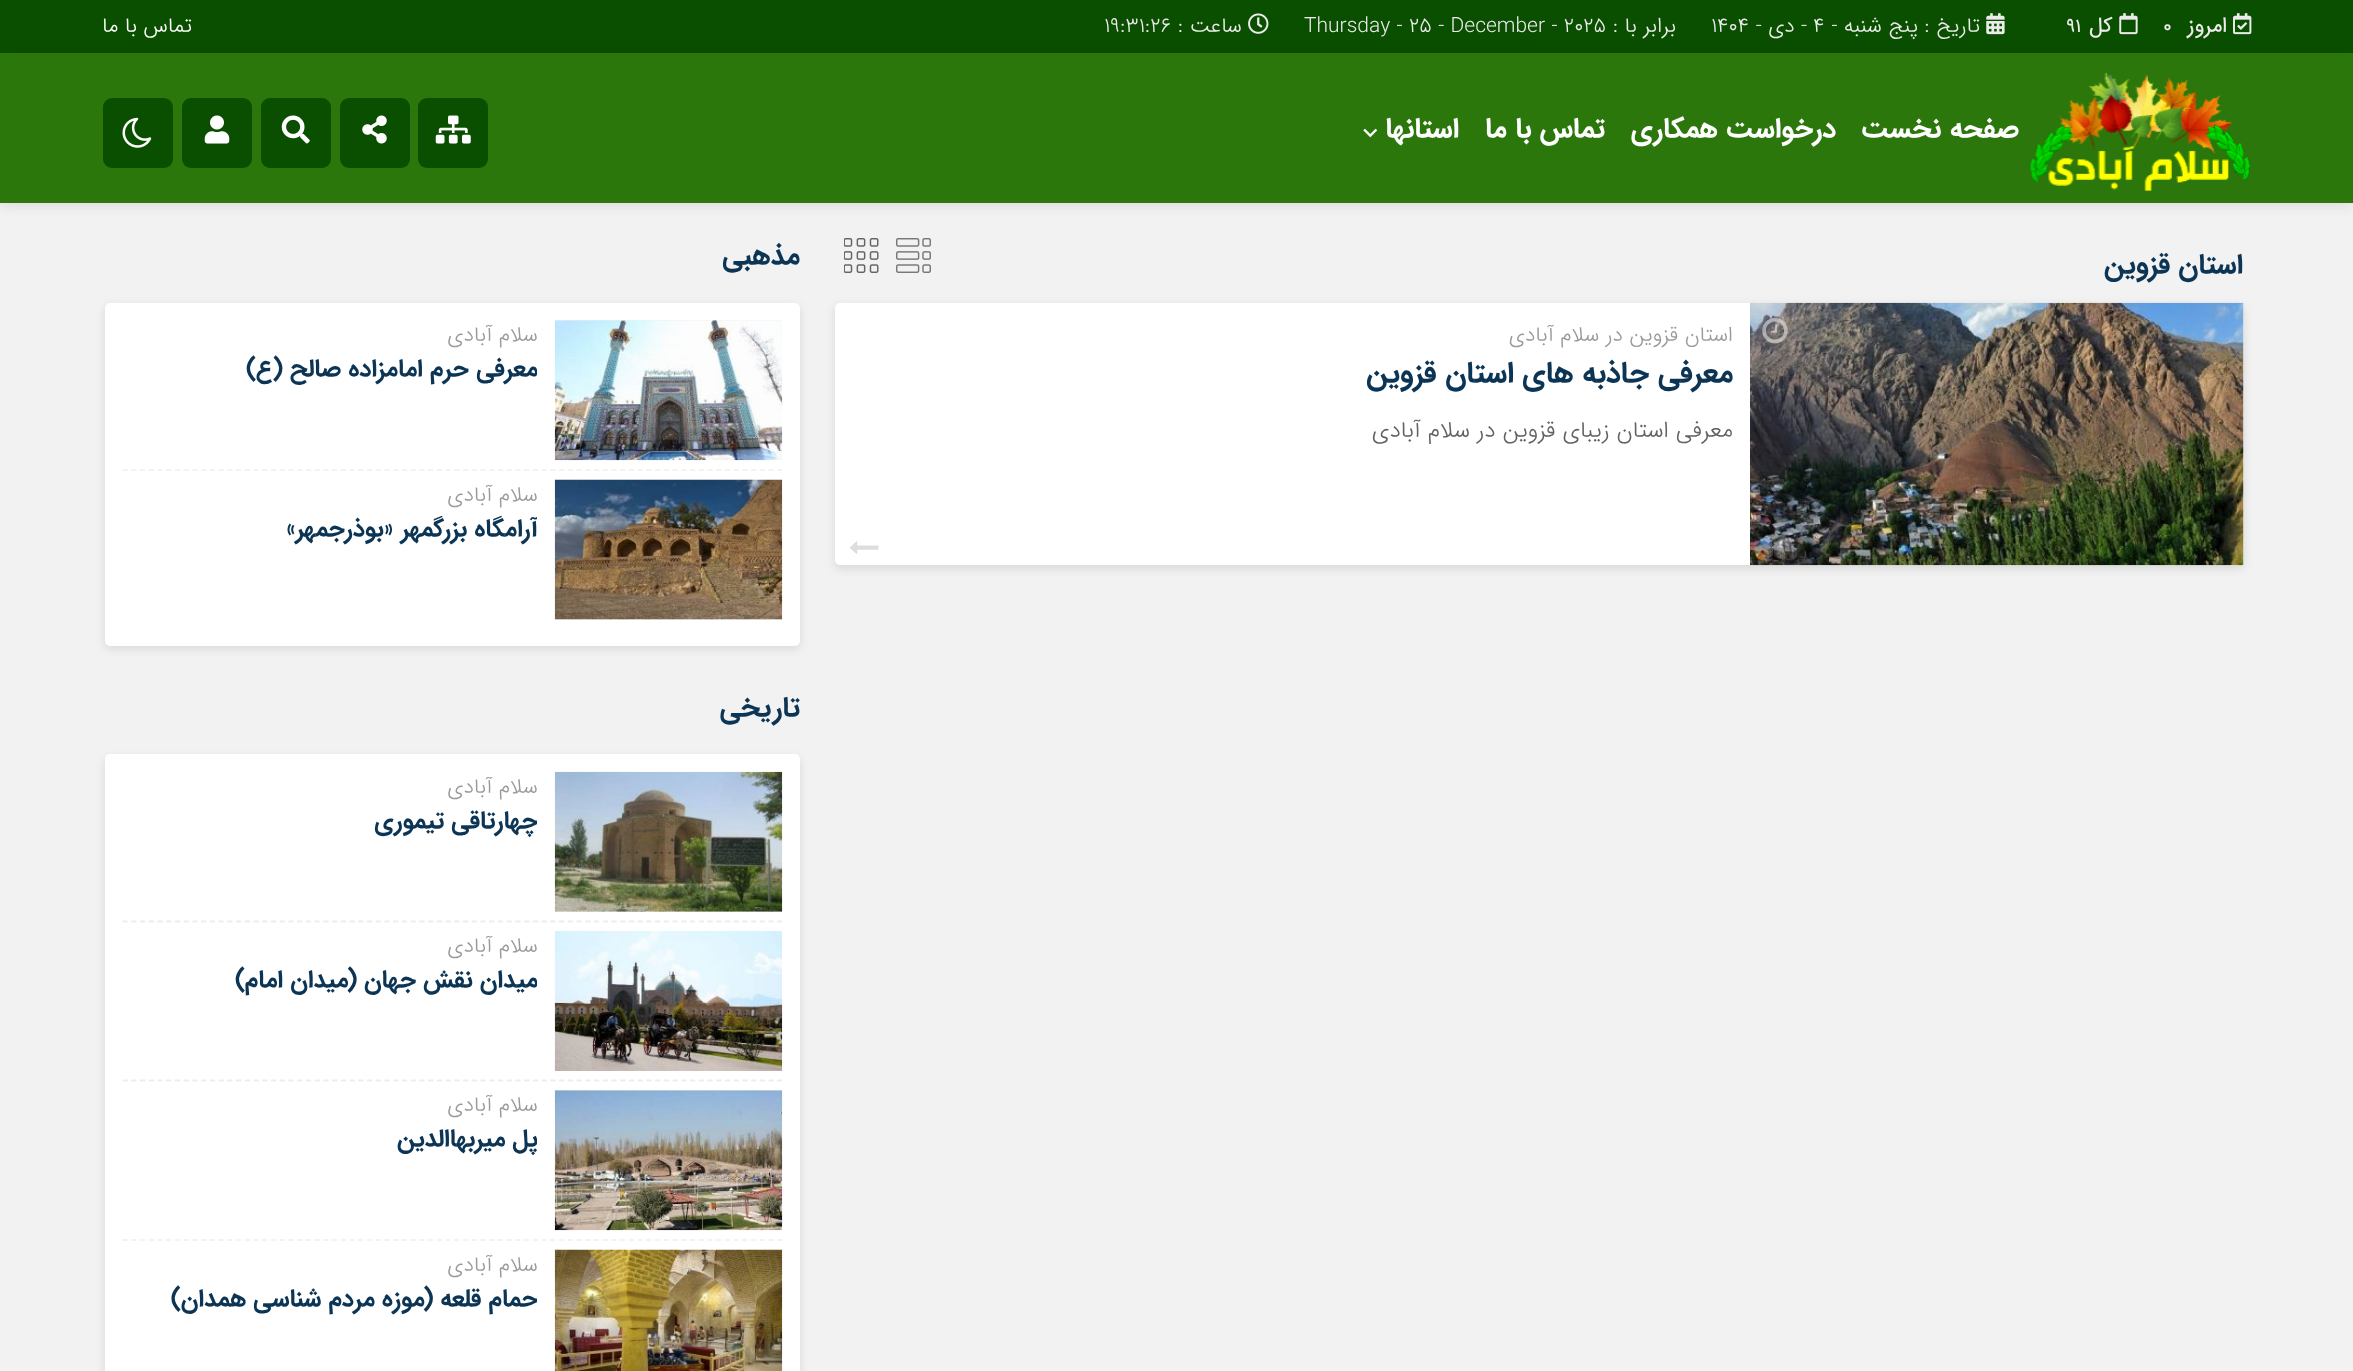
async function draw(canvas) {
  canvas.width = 2353
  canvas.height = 1371
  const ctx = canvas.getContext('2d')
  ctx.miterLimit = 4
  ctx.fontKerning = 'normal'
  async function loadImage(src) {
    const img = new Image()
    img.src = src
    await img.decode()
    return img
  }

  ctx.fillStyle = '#f2f2f2'
  ctx.fillRect(0, 0, 2353, 1371)
  ctx.fillStyle = '#0a4f00'
  ctx.fillRect(0, 0, 2353, 53)
  ctx.drawImage(await loadImage('image0.png'), 2233, 13, 19, 22)
  ctx.direction = 'rtl'
  ctx.font = 'bold 21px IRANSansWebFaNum'
  ctx.fillStyle = '#ebebeb'
  ctx.fillText('امروز', 2227, 32)
  ctx.direction = 'ltr'
  ctx.font = 'bold 19px IRANSansWebFaNum'
  ctx.fillText('0', 2163, 32)
  ctx.drawImage(await loadImage('image1.png'), 2119, 13, 19, 22)
  ctx.direction = 'rtl'
  ctx.font = 'bold 21px IRANSansWebFaNum'
  ctx.fillText('کل', 2112, 32)
  ctx.direction = 'ltr'
  ctx.font = 'bold 19px IRANSansWebFaNum'
  ctx.fillText('91', 2066, 32)
  ctx.drawImage(await loadImage('image2.png'), 1986, 13, 19, 22)
  ctx.direction = 'rtl'
  ctx.font = '300 21px IRANSansWebFaNum'
  ctx.fillText('تاریخ : پنج شنبه -', 1980, 32)
  ctx.direction = 'ltr'
  ctx.fillText('۴', 1813, 32)
  ctx.direction = 'rtl'
  ctx.fillText('- دی -', 1807, 32)
  ctx.direction = 'ltr'
  ctx.fillText('۱۴۰۴', 1711, 32)
  ctx.direction = 'rtl'
  ctx.fillText('برابر با :', 1676, 32)
  ctx.direction = 'ltr'
  ctx.fillText('Thursday - 25 - December - 2025', 1304, 32)
  ctx.drawImage(await loadImage('image3.png'), 1248, 13, 21, 21)
  ctx.direction = 'rtl'
  ctx.fillText('ساعت :', 1242, 32)
  ctx.direction = 'ltr'
  ctx.fillText('19:31:26', 1104, 32)
  ctx.fillStyle = '#0000001a'
  ctx.filter = 'blur(7px)'
  ctx.beginPath()
  ctx.rect(0, 54, 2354, 151)
  ctx.fill()
  ctx.filter = 'none'
  ctx.direction = 'rtl'
  ctx.fillStyle = '#fff'
  ctx.fillText('تماس با ما', 192, 32)
  ctx.fillStyle = '#2c770b'
  ctx.fillRect(0, 53, 2353, 150)
  ctx.drawImage(await loadImage('image4.png'), 2029, 72, 221, 119)
  ctx.font = 'bold 28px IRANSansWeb'
  ctx.fillStyle = '#fff'
  ctx.fillText('صفحه نخست', 2019, 137)
  ctx.fillText('درخواست همکاری', 1836, 137)
  ctx.fillText('تماس با ما', 1605, 137)
  ctx.fillText('استانها', 1459, 137)
  ctx.drawImage(await loadImage('image5.png'), 1363, 128, 14, 10)
  ctx.fillStyle = '#0a4f00'
  ctx.beginPath()
  ctx.roundRect(418, 98, 70, 70, 9)
  ctx.fill()
  ctx.drawImage(await loadImage('image6.png'), 435, 115, 36, 29)
  ctx.beginPath()
  ctx.roundRect(340, 98, 70, 70, 9)
  ctx.fill()
  ctx.drawImage(await loadImage('image7.png'), 362, 115, 25, 29)
  ctx.beginPath()
  ctx.roundRect(261, 98, 70, 70, 9)
  ctx.fill()
  ctx.drawImage(await loadImage('image8.png'), 281, 115, 29, 29)
  ctx.beginPath()
  ctx.roundRect(182, 98, 70, 70, 9)
  ctx.fill()
  ctx.drawImage(await loadImage('image9.png'), 204, 115, 26, 29)
  ctx.beginPath()
  ctx.roundRect(103, 98, 70, 70, 9)
  ctx.fill()
  ctx.drawImage(await loadImage('image10.png'), 122, 117, 30, 31)
  ctx.fillStyle = '#0c3555'
  ctx.fillText('استان قزوین', 2243, 273)
  ctx.drawImage(await loadImage('image11.png'), 896, 238, 35, 35)
  ctx.drawImage(await loadImage('image12.png'), 844, 238, 35, 35)
  ctx.fillStyle = '#0000001a'
  ctx.filter = 'blur(5px)'
  ctx.beginPath()
  ctx.roundRect(835, 306, 1409, 263, 5)
  ctx.fill()
  ctx.filter = 'none'
  ctx.fillStyle = '#fff'
  ctx.beginPath()
  ctx.roundRect(835, 303, 1409, 262, 5)
  ctx.fill()
  ctx.fillStyle = '#eee'
  ctx.fillRect(2243, 303, 1, 262)
  ctx.drawImage(await loadImage('image13.png'), 1750, 302, 494, 264)
  ctx.drawImage(await loadImage('image14.png'), 1762, 317, 26, 27)
  ctx.font = '300 21px IRANSansWebFaNum'
  ctx.fillStyle = '#9a9a9a'
  ctx.fillText('استان قزوین در سلام آبادی', 1733, 341)
  ctx.font = 'bold 29.75px IRANSansWeb'
  ctx.fillStyle = '#0c3555'
  ctx.fillText('معرفی جاذبه های استان قزوین', 1733, 382)
  ctx.font = '300 22.75px IRANSansWebFaNum'
  ctx.fillStyle = '#626262'
  ctx.fillText('معرفی استان زیبای قزوین در سلام آبادی', 1733, 437)
  ctx.drawImage(await loadImage('image15.png'), 850, 541, 29, 13)
  ctx.font = 'bold 28px IRANSansWeb'
  ctx.fillStyle = '#0c3555'
  ctx.fillText('مذهبی', 800, 264)
  ctx.fillStyle = '#0000001a'
  ctx.filter = 'blur(5px)'
  ctx.beginPath()
  ctx.roundRect(105, 306, 695, 343, 5)
  ctx.fill()
  ctx.filter = 'none'
  ctx.fillStyle = '#fff'
  ctx.beginPath()
  ctx.roundRect(105, 303, 695, 343, 5)
  ctx.fill()
  ctx.beginPath()
  ctx.moveTo(122.5, 470)
  ctx.lineTo(782, 470)
  ctx.strokeStyle = '#f3f3f3'
  ctx.lineWidth = 1.8
  ctx.setLineDash([5.25, 3.48])
  ctx.stroke()
  ctx.fillStyle = '#eee'
  ctx.fillRect(555, 320, 227, 1)
  ctx.drawImage(await loadImage('image16.png'), 554, 320, 229, 141)
  ctx.font = '300 21px IRANSansWebFaNum'
  ctx.fillStyle = '#9a9a9a'
  ctx.fillText('سلام آبادی', 538, 341)
  ctx.save()
  ctx.beginPath()
  ctx.rect(140, 352, 397, 37)
  ctx.clip()
  ctx.font = 'bold 24.5px IRANSansWeb'
  ctx.fillStyle = '#0c3555'
  ctx.fillText('معرفی حرم امامزاده صالح (ع)', 538, 376)
  ctx.restore()
  ctx.fillStyle = '#eee'
  ctx.fillRect(555, 619, 227, 1)
  ctx.drawImage(await loadImage('image17.png'), 554, 479, 229, 141)
  ctx.fillStyle = '#9a9a9a'
  ctx.fillText('سلام آبادی', 538, 501)
  ctx.save()
  ctx.beginPath()
  ctx.rect(140, 511, 397, 37)
  ctx.clip()
  ctx.font = 'bold 24.5px IRANSansWeb'
  ctx.fillStyle = '#0c3555'
  ctx.fillText('آرامگاه بزرگمهر «بوذرجمهر»', 538, 536)
  ctx.restore()
  ctx.font = 'bold 28px IRANSansWeb'
  ctx.fillStyle = '#0c3555'
  ctx.fillText('تاریخی', 800, 716)
  ctx.fillStyle = '#0000001a'
  ctx.filter = 'blur(5px)'
  ctx.beginPath()
  ctx.roundRect(105, 758, 695, 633, 5)
  ctx.fill()
  ctx.filter = 'none'
  ctx.fillStyle = '#fff'
  ctx.beginPath()
  ctx.roundRect(105, 754, 695, 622, 5)
  ctx.fill()
  ctx.beginPath()
  ctx.moveTo(122.5, 921.5)
  ctx.lineTo(782, 921.5)
  ctx.strokeStyle = '#ededed'
  ctx.stroke()
  ctx.fillStyle = '#eee'
  ctx.fillRect(555, 911, 227, 1)
  ctx.drawImage(await loadImage('image18.png'), 554, 771, 229, 141)
  ctx.font = '300 21px IRANSansWebFaNum'
  ctx.fillStyle = '#9a9a9a'
  ctx.fillText('سلام آبادی', 538, 793)
  ctx.save()
  ctx.beginPath()
  ctx.rect(140, 803, 397, 37)
  ctx.clip()
  ctx.font = 'bold 24.5px IRANSansWeb'
  ctx.fillStyle = '#0c3555'
  ctx.fillText('چهارتاقی تیموری', 538, 828)
  ctx.restore()
  ctx.beginPath()
  ctx.moveTo(122.5, 1080.5)
  ctx.lineTo(782, 1080.5)
  ctx.stroke()
  ctx.drawImage(await loadImage('image19.png'), 554, 931, 229, 140)
  ctx.fillText('سلام آبادی', 538, 952)
  ctx.save()
  ctx.beginPath()
  ctx.rect(140, 963, 397, 36)
  ctx.clip()
  ctx.font = 'bold 24.5px IRANSansWeb'
  ctx.fillStyle = '#0c3555'
  ctx.fillText('میدان نقش جهان (میدان امام)', 538, 987)
  ctx.restore()
  ctx.beginPath()
  ctx.moveTo(122.5, 1240)
  ctx.lineTo(782, 1240)
  ctx.strokeStyle = '#f3f3f3'
  ctx.stroke()
  ctx.fillStyle = '#eee'
  ctx.fillRect(555, 1090, 227, 1)
  ctx.drawImage(await loadImage('image20.png'), 554, 1090, 229, 141)
  ctx.fillStyle = '#9a9a9a'
  ctx.fillText('سلام آبادی', 538, 1111)
  ctx.save()
  ctx.beginPath()
  ctx.rect(140, 1122, 397, 37)
  ctx.clip()
  ctx.font = 'bold 24.5px IRANSansWeb'
  ctx.fillStyle = '#0c3555'
  ctx.fillText('پل میربهاالدین', 538, 1146)
  ctx.restore()
  ctx.drawImage(await loadImage('image21.png'), 554, 1249, 229, 122)
  ctx.fillText('سلام آبادی', 538, 1271)
  ctx.save()
  ctx.beginPath()
  ctx.rect(140, 1281, 397, 37)
  ctx.clip()
  ctx.font = 'bold 24.5px IRANSansWeb'
  ctx.fillStyle = '#0c3555'
  ctx.fillText('حمام قلعه (موزه مردم شناسی همدان)', 538, 1306)
  ctx.restore()
}

draw(document.querySelector('canvas'))
